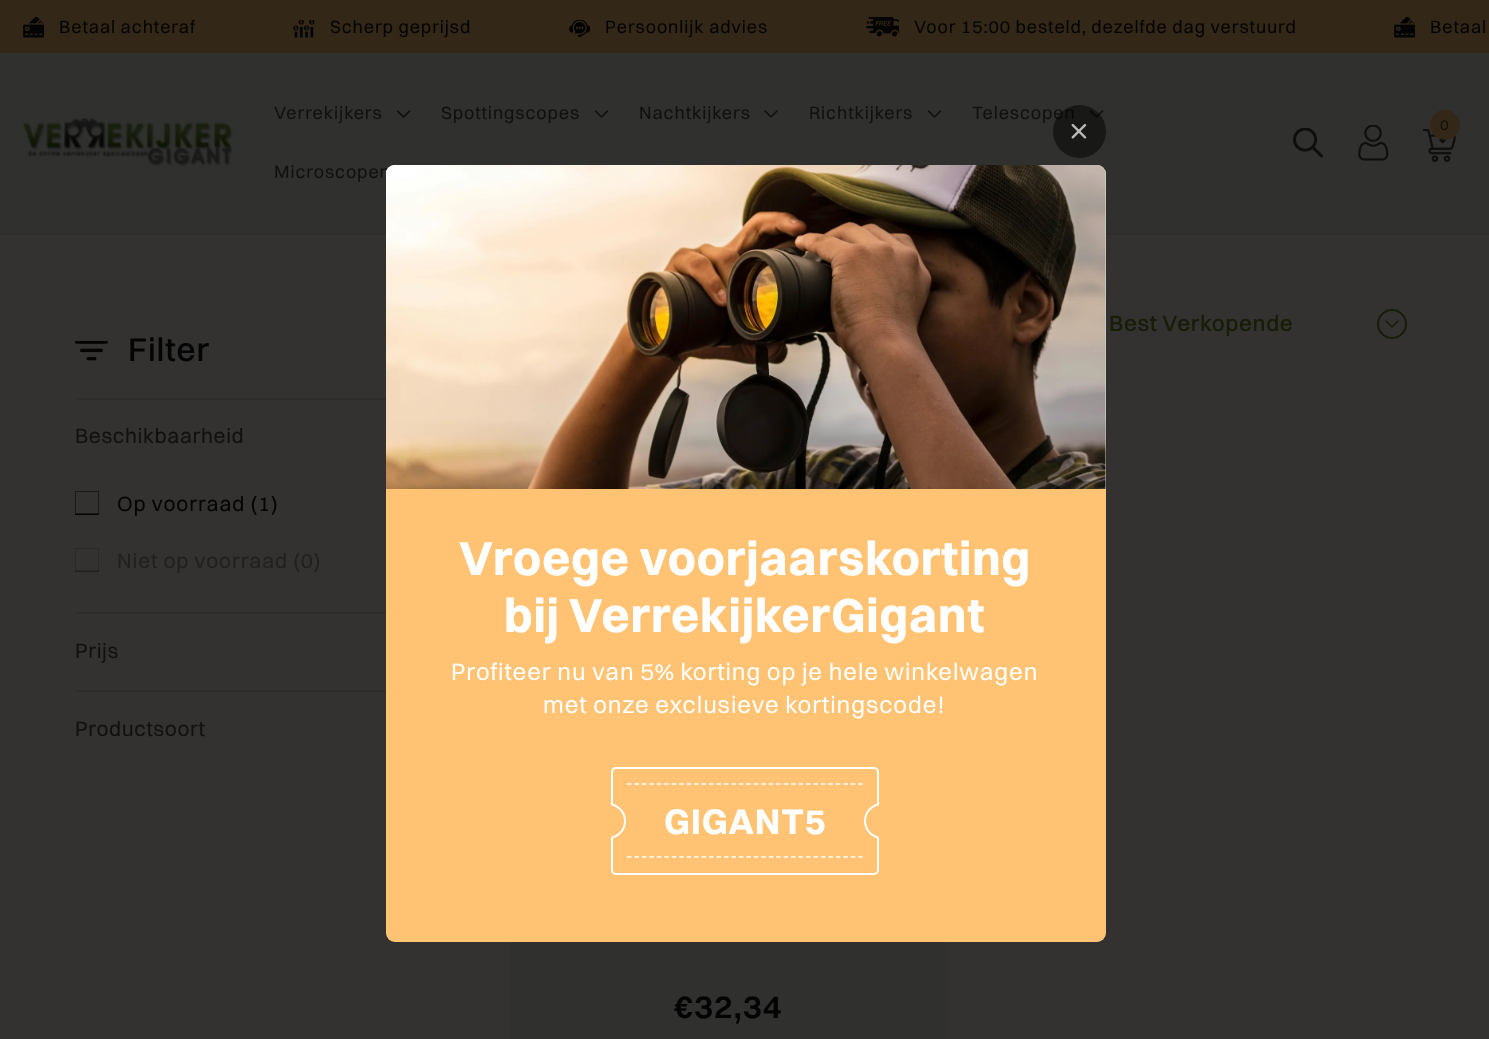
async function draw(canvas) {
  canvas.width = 1489
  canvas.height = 1039
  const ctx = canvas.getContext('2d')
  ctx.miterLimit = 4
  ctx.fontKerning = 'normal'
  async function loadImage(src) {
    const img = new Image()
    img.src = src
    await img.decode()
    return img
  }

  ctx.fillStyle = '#333231'
  ctx.fillRect(0, 0, 1489, 1039)
  ctx.fillStyle = '#302f2e'
  ctx.fillRect(0, 234, 1489, 1)
  ctx.fillStyle = '#332717'
  ctx.fillRect(0, 0, 1489, 53)
  ctx.drawImage(await loadImage('image0.png'), 23, 17, 21, 21)
  ctx.letterSpacing = '0.9px'
  ctx.font = '18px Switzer'
  ctx.fillStyle = '#040404'
  ctx.fillText('Betaal achteraf', 59, 33)
  ctx.drawImage(await loadImage('image1.png'), 293, 20, 22, 18)
  ctx.fillText('Scherp geprijsd', 330, 33)
  ctx.drawImage(await loadImage('image2.png'), 569, 20, 21, 17)
  ctx.fillText('Persoonlijk advies', 605, 33)
  ctx.drawImage(await loadImage('image3.png'), 866, 17, 33, 20)
  ctx.fillText('Voor 15:00 besteld, dezelfde dag verstuurd', 914, 33)
  ctx.drawImage(await loadImage('image0.png'), 1394, 17, 21, 21)
  ctx.fillText('Betaal', 1430, 33)
  ctx.fillStyle = '#30312e'
  ctx.fillRect(0, 53, 1489, 180)
  ctx.fillStyle = '#2d2e2b'
  ctx.fillRect(0, 233, 1489, 1)
  ctx.drawImage(await loadImage('image4.png'), 22, 118, 211, 49)
  ctx.fillStyle = '#10100f'
  ctx.fillText('Verrekijkers', 274, 119)
  ctx.drawImage(await loadImage('image5.png'), 396, 110, 15, 8)
  ctx.fillText('Spottingscopes', 441, 119)
  ctx.drawImage(await loadImage('image5.png'), 594, 110, 15, 8)
  ctx.fillText('Nachtkijkers', 639, 119)
  ctx.drawImage(await loadImage('image6.png'), 764, 110, 14, 8)
  ctx.fillText('Richtkijkers', 809, 119)
  ctx.drawImage(await loadImage('image5.png'), 927, 110, 15, 8)
  ctx.fillText('Telescopen', 972, 119)
  ctx.drawImage(await loadImage('image5.png'), 1089, 110, 15, 8)
  ctx.fillText('Microscopen', 274, 178)
  ctx.drawImage(await loadImage('image7.png'), 1293, 128, 30, 30)
  ctx.drawImage(await loadImage('image8.png'), 1358, 125, 31, 36)
  ctx.drawImage(await loadImage('image9.png'), 1422, 129, 34, 33)
  ctx.fillStyle = '#332717'
  ctx.beginPath()
  ctx.arc(1445, 125, 15, 0, 2 * Math.PI)
  ctx.fill()
  ctx.font = '15px Switzer'
  ctx.fillStyle = '#10100f'
  ctx.fillText('0', 1440, 130)
  ctx.drawImage(await loadImage('image10.png'), 75, 341, 33, 20)
  ctx.font = '500 33px Switzer'
  ctx.fillStyle = '#040404'
  ctx.fillText('Filter', 128, 361)
  ctx.fillStyle = '#2e2d2c'
  ctx.fillRect(75, 398, 311, 2)
  ctx.letterSpacing = '0.6px'
  ctx.font = '21px Switzer'
  ctx.fillStyle = '#10100f'
  ctx.fillText('Beschikbaarheid', 75, 443)
  ctx.save()
  ctx.beginPath()
  ctx.rect(75, 491, 24, 24)
  ctx.clip()
  ctx.strokeStyle = '#040404'
  ctx.lineWidth = 1.5
  ctx.strokeRect(74.75, 490.75, 24.5, 23.5)
  ctx.restore()
  ctx.letterSpacing = '0.9px'
  ctx.fillStyle = '#040404'
  ctx.fillText('Op voorraad (1)', 117, 511)
  ctx.save()
  ctx.beginPath()
  ctx.rect(75, 548, 24, 24)
  ctx.clip()
  ctx.strokeStyle = '#20201f'
  ctx.lineWidth = 1.5
  ctx.strokeRect(74.75, 547.75, 24.5, 23.5)
  ctx.restore()
  ctx.fillStyle = '#20201f'
  ctx.fillText('Niet op voorraad (0)', 117, 568)
  ctx.fillStyle = '#2e2d2c'
  ctx.fillRect(75, 612, 311, 2)
  ctx.letterSpacing = '0.6px'
  ctx.fillStyle = '#10100f'
  ctx.fillText('Prijs', 75, 658)
  ctx.fillStyle = '#2e2d2c'
  ctx.fillRect(75, 690, 311, 2)
  ctx.fillStyle = '#10100f'
  ctx.fillText('Productsoort', 75, 736)
  ctx.font = '500 22.5px Switzer'
  ctx.fillStyle = '#171d06'
  ctx.fillText('Best Verkopende', 1109, 331)
  ctx.beginPath()
  ctx.arc(1392, 324, 14, 0, 2 * Math.PI)
  ctx.strokeStyle = '#171d06'
  ctx.lineWidth = 2
  ctx.stroke()
  ctx.drawImage(await loadImage('image11.png'), 1385, 320, 14, 8)
  ctx.fillStyle = '#30312e'
  ctx.fillRect(510, 942, 438, 97)
  ctx.letterSpacing = '0.9px'
  ctx.font = '600 33px Switzer'
  ctx.fillStyle = '#040404'
  ctx.fillText('€32,34', 674, 1018)
  ctx.fillStyle = '#0000007d'
  ctx.beginPath()
  ctx.arc(1079.5, 131.5, 26.5, 0, 2 * Math.PI)
  ctx.fill()
  ctx.drawImage(await loadImage('image12.png'), 1071, 123, 16, 16)
  ctx.fillStyle = '#ffc373'
  ctx.beginPath()
  ctx.roundRect(386, 165, 720, 777, 9)
  ctx.fill()
  ctx.fillStyle = '#ccc'
  ctx.beginPath()
  ctx.roundRect(386, 165, 720, 324, [9, 9, 0, 0])
  ctx.fill()
  ctx.drawImage(await loadImage('image13.png'), 386, 165, 720, 324)
  ctx.font = 'bold 48px Switzer'
  ctx.fillStyle = '#fff'
  ctx.fillText('Vroege voorjaarskorting', 459, 575)
  ctx.fillText('bij VerrekijkerGigant', 504, 632)
  ctx.font = '24px Switzer'
  ctx.fillText('Profiteer nu van 5% korting op je hele winkelwagen', 451, 680)
  ctx.fillText('met onze exclusieve kortingscode!', 543, 713)
  ctx.beginPath()
  ctx.roundRect(612, 768, 266, 106, 4)
  ctx.strokeStyle = '#fff'
  ctx.stroke()
  ctx.fillStyle = '#ffc373'
  ctx.beginPath()
  ctx.arc(608, 821, 17, 0, 2 * Math.PI)
  ctx.fill()
  ctx.stroke()
  ctx.fillRect(590, 803, 21, 36)
  ctx.beginPath()
  ctx.moveTo(627, 784)
  ctx.lineTo(862.5, 784)
  ctx.lineWidth = 1.5
  ctx.setLineDash([4.5, 2.96])
  ctx.stroke()
  ctx.beginPath()
  ctx.moveTo(627, 857)
  ctx.lineTo(862.5, 857)
  ctx.stroke()
  ctx.font = 'bold 36px Switzer'
  ctx.fillStyle = '#fff'
  ctx.fillText('GIGANT5', 664, 834)
  ctx.fillStyle = '#ffc373'
  ctx.beginPath()
  ctx.arc(882, 821, 17, 0, 2 * Math.PI)
  ctx.fill()
  ctx.lineWidth = 2
  ctx.setLineDash([])
  ctx.stroke()
  ctx.fillRect(879, 803, 21, 36)
}

draw(document.querySelector('canvas'))
